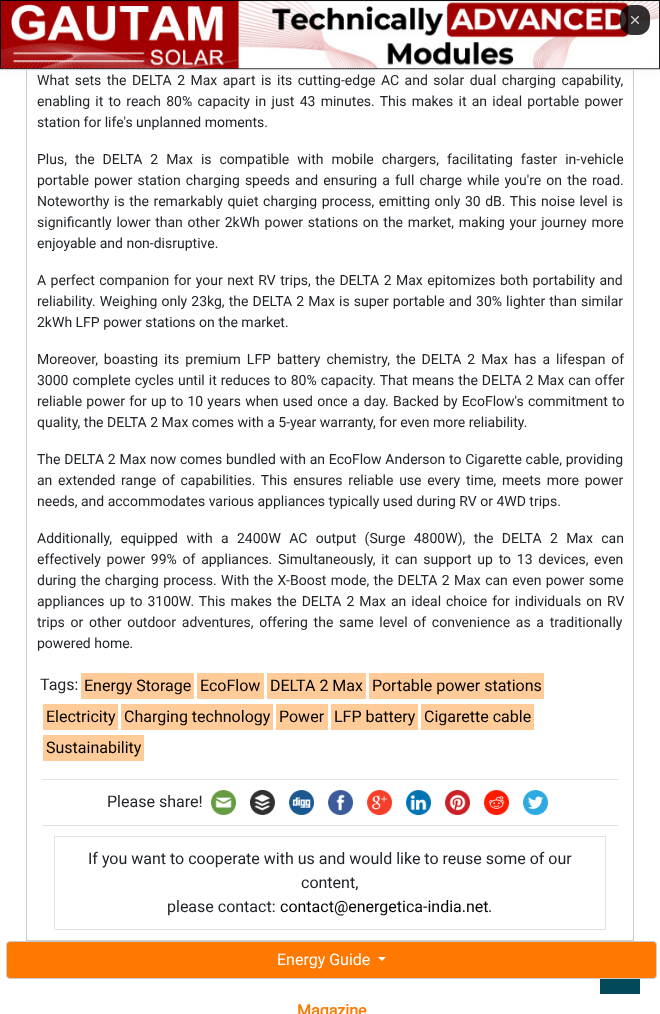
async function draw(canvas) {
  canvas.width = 660
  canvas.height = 1014
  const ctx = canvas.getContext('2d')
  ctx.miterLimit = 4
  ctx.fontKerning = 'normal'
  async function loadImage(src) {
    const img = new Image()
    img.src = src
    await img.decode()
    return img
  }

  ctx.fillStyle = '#fff'
  ctx.fillRect(0, 0, 660, 1014)
  ctx.strokeStyle = '#ccc'
  ctx.strokeRect(26.5, -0.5, 607, 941)
  ctx.fillStyle = '#09204c1a'
  ctx.filter = 'blur(9px)'
  ctx.beginPath()
  ctx.rect(0, -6, 660, 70)
  ctx.fill()
  ctx.filter = 'none'
  ctx.fillStyle = '#ccc'
  ctx.fillRect(0, 69, 660, 1)
  ctx.drawImage(await loadImage('image0.png'), 0, 0, 660, 69)
  ctx.fillStyle = '#000000cc'
  ctx.beginPath()
  ctx.roundRect(620, 5, 30, 30, 12)
  ctx.fill()
  ctx.drawImage(await loadImage('image1.png'), 631, 16, 8, 8)
  ctx.wordSpacing = '2px'
  ctx.font = '14px Roboto'
  ctx.fillStyle = '#212529'
  ctx.fillText('What sets the DELTA 2 Max apart is its cutting-edge AC and solar dual charging capability,', 37, 85)
  ctx.wordSpacing = '1.8px'
  ctx.fillText('enabling it to reach 80% capacity in just 43 minutes. This makes it an ideal portable power', 37, 106)
  ctx.wordSpacing = '0px'
  ctx.fillText('station for life\'s unplanned moments.', 37, 127)
  ctx.wordSpacing = '4.5px'
  ctx.fillText('Plus, the DELTA 2 Max is compatible with mobile chargers, facilitating faster in-vehicle', 37, 164)
  ctx.wordSpacing = '1.6px'
  ctx.fillText('portable power station charging speeds and ensuring a full charge while you\'re on the road.', 37, 185)
  ctx.wordSpacing = '1.1px'
  ctx.fillText('Noteworthy is the remarkably quiet charging process, emitting only 30 dB. This noise level is', 37, 206)
  ctx.wordSpacing = '1.25px'
  ctx.fillText('significantly lower than other 2kWh power stations on the market, making your journey more', 37, 227)
  ctx.wordSpacing = '0px'
  ctx.fillText('enjoyable and non-disruptive.', 37, 248)
  ctx.wordSpacing = '1px'
  ctx.fillText('A perfect companion for your next RV trips, the DELTA 2 Max epitomizes both portability and', 37, 285)
  ctx.wordSpacing = '0.6px'
  ctx.fillText('reliability. Weighing only 23kg, the DELTA 2 Max is super portable and 30% lighter than similar', 37, 306)
  ctx.wordSpacing = '0px'
  ctx.fillText('2kWh LFP power stations on the market.', 37, 327)
  ctx.wordSpacing = '2.5px'
  ctx.fillText('Moreover, boasting its premium LFP battery chemistry, the DELTA 2 Max has a lifespan of', 37, 364)
  ctx.wordSpacing = '0.5px'
  ctx.fillText('3000 complete cycles until it reduces to 80% capacity. That means the DELTA 2 Max can offer', 37, 385)
  ctx.wordSpacing = '0.75px'
  ctx.fillText('reliable power for up to 10 years when used once a day. Backed by EcoFlow\'s commitment to', 37, 406)
  ctx.wordSpacing = '0px'
  ctx.fillText('quality, the DELTA 2 Max comes with a 5-year warranty, for even more reliability.', 37, 427)
  ctx.wordSpacing = '0.3px'
  ctx.fillText('The DELTA 2 Max now comes bundled with an EcoFlow Anderson to Cigarette cable, providing', 37, 464)
  ctx.wordSpacing = '2.25px'
  ctx.fillText('an extended range of capabilities. This ensures reliable use every time, meets more power', 37, 485)
  ctx.wordSpacing = '0px'
  ctx.fillText('needs, and accommodates various appliances typically used during RV or 4WD trips.', 37, 506)
  ctx.wordSpacing = '4.9px'
  ctx.fillText('Additionally, equipped with a 2400W AC output (Surge 4800W), the DELTA 2 Max can', 37, 543)
  ctx.wordSpacing = '2.25px'
  ctx.fillText('effectively power 99% of appliances. Simultaneously, it can support up to 13 devices, even', 37, 564)
  ctx.wordSpacing = '0.9px'
  ctx.fillText('during the charging process. With the X-Boost mode, the DELTA 2 Max can even power some', 37, 585)
  ctx.wordSpacing = '1.5px'
  ctx.fillText('appliances up to 3100W. This makes the DELTA 2 Max an ideal choice for individuals on RV', 37, 606)
  ctx.wordSpacing = '2.25px'
  ctx.fillText('trips or other outdoor adventures, offering the same level of convenience as a traditionally', 37, 627)
  ctx.wordSpacing = '0px'
  ctx.fillText('powered home.', 37, 648)
  ctx.font = '16px Roboto'
  ctx.fillText('Tags:', 40, 690)
  ctx.fillStyle = '#fc9'
  ctx.fillRect(81, 673, 113, 26)
  ctx.fillStyle = '#000'
  ctx.fillText('Energy Storage', 84, 691)
  ctx.fillStyle = '#fc9'
  ctx.fillRect(197, 673, 67, 26)
  ctx.fillStyle = '#000'
  ctx.fillText('EcoFlow', 200, 691)
  ctx.fillStyle = '#fc9'
  ctx.fillRect(267, 673, 99, 26)
  ctx.fillStyle = '#000'
  ctx.fillText('DELTA 2 Max', 270, 691)
  ctx.fillStyle = '#fc9'
  ctx.fillRect(369, 673, 175, 26)
  ctx.fillStyle = '#000'
  ctx.fillText('Portable power stations', 372, 691)
  ctx.fillStyle = '#fc9'
  ctx.fillRect(43, 704, 75, 26)
  ctx.fillStyle = '#000'
  ctx.fillText('Electricity', 46, 722)
  ctx.fillStyle = '#fc9'
  ctx.fillRect(121, 704, 152, 26)
  ctx.fillStyle = '#000'
  ctx.fillText('Charging technology', 124, 722)
  ctx.fillStyle = '#fc9'
  ctx.fillRect(276, 704, 52, 26)
  ctx.fillStyle = '#000'
  ctx.fillText('Power', 279, 722)
  ctx.fillStyle = '#fc9'
  ctx.fillRect(331, 704, 87, 26)
  ctx.fillStyle = '#000'
  ctx.fillText('LFP battery', 334, 722)
  ctx.fillStyle = '#fc9'
  ctx.fillRect(421, 704, 113, 26)
  ctx.fillStyle = '#000'
  ctx.fillText('Cigarette cable', 424, 722)
  ctx.fillStyle = '#fc9'
  ctx.fillRect(43, 735, 101, 26)
  ctx.fillStyle = '#000'
  ctx.fillText('Sustainability', 46, 753)
  ctx.fillStyle = '#e2e2e2'
  ctx.fillRect(42, 779, 576, 1)
  ctx.fillRect(42, 825, 576, 1)
  ctx.fillStyle = '#212529'
  ctx.fillText('Please share!', 107, 807)
  ctx.drawImage(await loadImage('image2.png'), 211, 790, 25, 25)
  ctx.drawImage(await loadImage('image3.png'), 250, 790, 25, 25)
  ctx.drawImage(await loadImage('image4.png'), 289, 790, 25, 25)
  ctx.drawImage(await loadImage('image5.png'), 328, 790, 25, 25)
  ctx.drawImage(await loadImage('image6.png'), 367, 790, 25, 25)
  ctx.drawImage(await loadImage('image7.png'), 406, 790, 25, 25)
  ctx.drawImage(await loadImage('image8.png'), 445, 790, 25, 25)
  ctx.drawImage(await loadImage('image9.png'), 484, 790, 25, 25)
  ctx.drawImage(await loadImage('image10.png'), 523, 790, 25, 25)
  ctx.strokeStyle = '#e2e2e2'
  ctx.strokeRect(54.5, 836.5, 551, 93)
  ctx.fillText('If you want to cooperate with us and would like to reuse some of our', 88, 864)
  ctx.fillText('content,', 301, 888)
  ctx.fillText('please contact:', 167, 912)
  ctx.fillStyle = '#000'
  ctx.fillText('contact@energetica-india.net', 280, 912)
  ctx.fillStyle = '#212529'
  ctx.fillText('.', 488, 912)
  ctx.fillStyle = '#ff7900'
  ctx.beginPath()
  ctx.roundRect(6.5, 941.5, 650, 37, 3.5)
  ctx.fill()
  ctx.strokeStyle = '#ccc'
  ctx.stroke()
  ctx.fillStyle = '#fff'
  ctx.fillText('Energy Guide', 277, 965)
  ctx.beginPath()
  ctx.moveTo(378, 957)
  ctx.lineTo(386, 957)
  ctx.lineTo(382, 961)
  ctx.closePath()
  ctx.fill()
  ctx.font = 'bold 16px Roboto'
  ctx.fillStyle = '#ff7900'
  ctx.fillText('Magazine', 297, 1016)
  ctx.fillStyle = '#024959'
  ctx.fillRect(600, 979, 40, 15)
}

draw(document.querySelector('canvas'))
